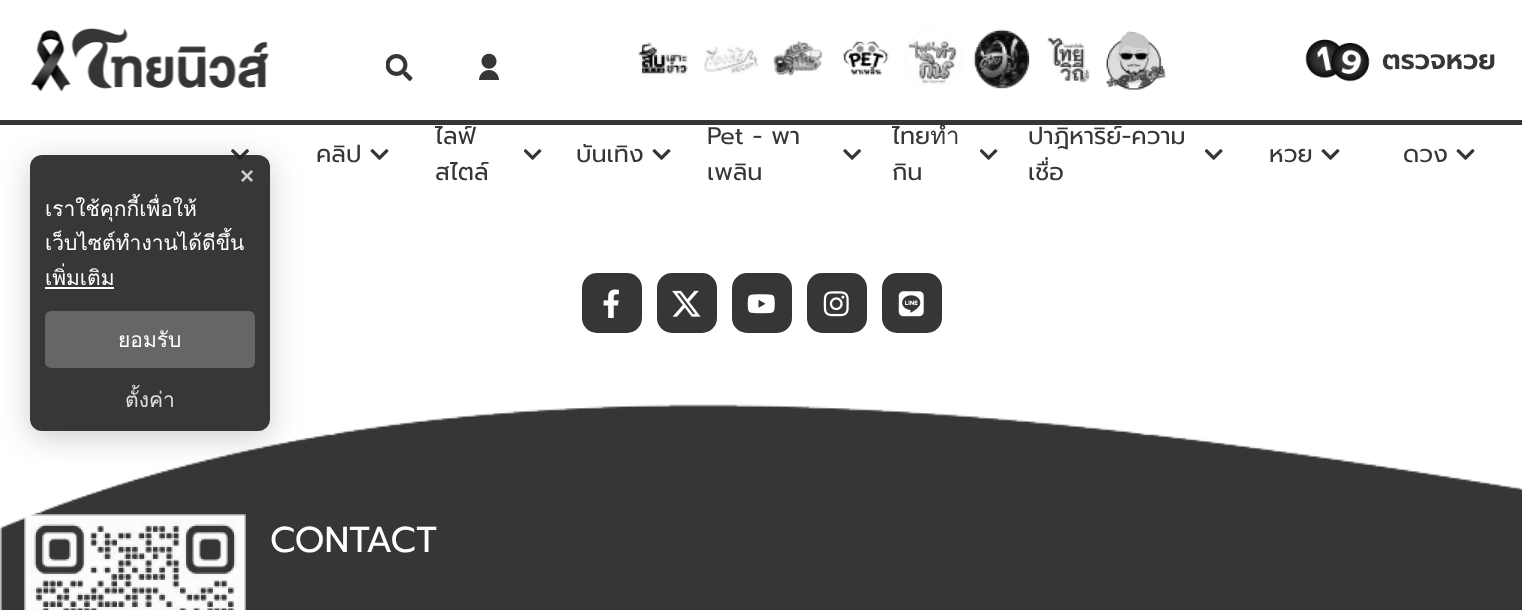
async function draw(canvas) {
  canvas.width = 1522
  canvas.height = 610
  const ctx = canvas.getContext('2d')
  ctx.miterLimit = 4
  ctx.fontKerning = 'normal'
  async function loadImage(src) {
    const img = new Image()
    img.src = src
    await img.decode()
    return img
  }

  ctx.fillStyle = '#fff'
  ctx.fillRect(0, 0, 1522, 610)
  ctx.drawImage(await loadImage('image0.png'), 30, 28, 239, 64)
  ctx.drawImage(await loadImage('image1.png'), 386, 54, 27, 27)
  ctx.drawImage(await loadImage('image2.png'), 479, 53, 20, 27)
  ctx.drawImage(await loadImage('image3.png'), 638, 42, 50, 34)
  ctx.drawImage(await loadImage('image4.png'), 703, 46, 56, 28)
  ctx.drawImage(await loadImage('image5.png'), 773, 40, 50, 36)
  ctx.drawImage(await loadImage('image6.png'), 842, 40, 47, 35)
  ctx.drawImage(await loadImage('image7.png'), 903, 30, 60, 59)
  ctx.drawImage(await loadImage('image8.png'), 973, 29, 57, 60)
  ctx.drawImage(await loadImage('image9.png'), 1047, 37, 43, 46)
  ctx.drawImage(await loadImage('image10.png'), 1106, 30, 60, 60)
  ctx.drawImage(await loadImage('image11.png'), 1305, 39, 65, 43)
  ctx.font = '600 27px Prompt'
  ctx.fillStyle = '#363636'
  ctx.fillText('ตรวจหวย', 1382, 69)
  ctx.fillRect(0, 120, 1522, 5)
  ctx.drawImage(await loadImage('image12.png'), 231, 149, 18, 11)
  ctx.font = '24px Prompt'
  ctx.fillText('คลิป', 316, 162)
  ctx.drawImage(await loadImage('image13.png'), 370, 149, 19, 11)
  ctx.fillText('ไลฟ์', 435, 144)
  ctx.fillText('สไตล์', 435, 180)
  ctx.drawImage(await loadImage('image14.png'), 524, 149, 18, 11)
  ctx.fillText('บันเทิง', 576, 162)
  ctx.drawImage(await loadImage('image13.png'), 652, 149, 19, 11)
  ctx.fillText('Pet - พา', 707, 144)
  ctx.fillText('เพลิน', 707, 180)
  ctx.drawImage(await loadImage('image15.png'), 843, 149, 18, 11)
  ctx.fillText('ไทยทำ', 892, 144)
  ctx.fillText('กิน', 892, 180)
  ctx.drawImage(await loadImage('image14.png'), 980, 149, 18, 11)
  ctx.fillText('ปาฎิหาริย์-ความ', 1028, 144)
  ctx.fillText('เชื่อ', 1028, 180)
  ctx.drawImage(await loadImage('image16.png'), 1205, 149, 18, 11)
  ctx.fillText('หวย', 1269, 162)
  ctx.drawImage(await loadImage('image13.png'), 1321, 149, 19, 11)
  ctx.fillText('ดวง', 1403, 162)
  ctx.drawImage(await loadImage('image13.png'), 1456, 149, 19, 11)
  ctx.drawImage(await loadImage('image17.png'), 0, 404, 1522, 206)
  ctx.save()
  ctx.beginPath()
  ctx.moveTo(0, 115)
  ctx.lineTo(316, 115)
  ctx.lineTo(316, 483)
  ctx.lineTo(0, 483)
  ctx.closePath()
  ctx.moveTo(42, 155)
  ctx.lineTo(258, 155)
  ctx.bezierCurveTo(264.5, 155, 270, 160.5, 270, 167)
  ctx.lineTo(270, 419)
  ctx.bezierCurveTo(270, 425.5, 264.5, 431, 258, 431)
  ctx.lineTo(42, 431)
  ctx.bezierCurveTo(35.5, 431, 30, 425.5, 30, 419)
  ctx.lineTo(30, 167)
  ctx.bezierCurveTo(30, 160.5, 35.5, 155, 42, 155)
  ctx.closePath()
  ctx.clip('evenodd')
  ctx.fillStyle = '#00000033'
  ctx.filter = 'blur(15px)'
  ctx.beginPath()
  ctx.roundRect(30, 161, 240, 276, 12)
  ctx.fill()
  ctx.filter = 'none'
  ctx.restore()
  ctx.fillStyle = '#212121e6'
  ctx.beginPath()
  ctx.roundRect(30, 155, 240, 276, 12)
  ctx.fill()
  ctx.font = 'bold 24px Liberation Sans'
  ctx.fillStyle = '#ccc'
  ctx.fillText('×', 240, 184)
  ctx.font = '21px Loma'
  ctx.fillStyle = '#fff'
  ctx.fillText('เราใช้คุกกี้เพื่อให้', 45, 216)
  ctx.fillText('เว็บไซต์ทำงานได้ดีขึ้น', 45, 250)
  ctx.fillText('เพิ่มเติม', 45, 285)
  ctx.fillRect(45, 287, 69, 2)
  ctx.fillStyle = '#666'
  ctx.beginPath()
  ctx.roundRect(45, 311, 210, 57, 6)
  ctx.fill()
  ctx.fillStyle = '#fff'
  ctx.fillText('ยอมรับ', 118, 347)
  ctx.fillStyle = '#e0e0e0'
  ctx.fillText('ตั้งค่า', 125, 407)
  ctx.fillStyle = '#363636'
  ctx.beginPath()
  ctx.roundRect(582, 273, 60, 60, 15)
  ctx.fill()
  ctx.drawImage(await loadImage('image18.png'), 603, 289, 16, 29)
  ctx.beginPath()
  ctx.roundRect(657, 273, 60, 60, 15)
  ctx.fill()
  ctx.drawImage(await loadImage('image19.png'), 672, 290, 29, 27)
  ctx.beginPath()
  ctx.roundRect(732, 273, 60, 60, 15)
  ctx.fill()
  ctx.drawImage(await loadImage('image20.png'), 747, 294, 28, 20)
  ctx.beginPath()
  ctx.roundRect(807, 273, 60, 60, 15)
  ctx.fill()
  ctx.drawImage(await loadImage('image21.png'), 823, 291, 26, 26)
  ctx.beginPath()
  ctx.roundRect(882, 273, 60, 60, 15)
  ctx.fill()
  ctx.drawImage(await loadImage('image22.png'), 898, 291, 26, 26)
  ctx.drawImage(await loadImage('image23.png'), 24, 514, 222, 96)
  ctx.font = '36px Prompt'
  ctx.fillStyle = '#fff'
  ctx.fillText('CONTACT', 270, 552)
}

draw(document.querySelector('canvas'))
